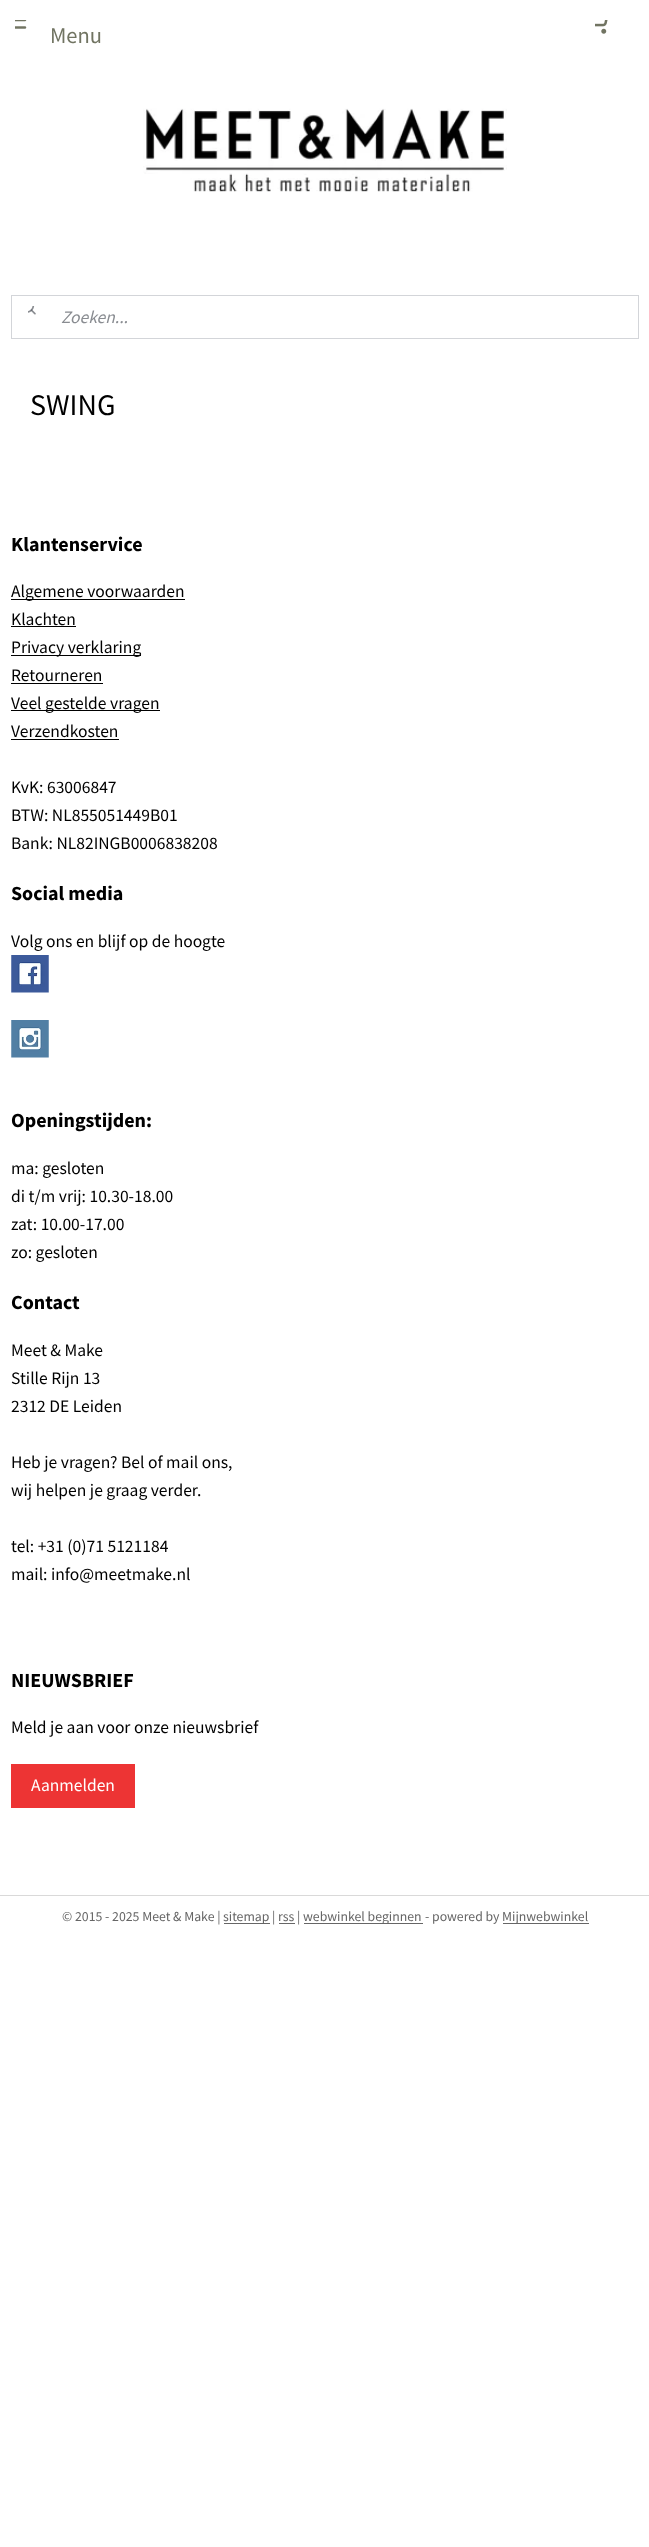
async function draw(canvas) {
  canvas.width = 649
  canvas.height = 2547
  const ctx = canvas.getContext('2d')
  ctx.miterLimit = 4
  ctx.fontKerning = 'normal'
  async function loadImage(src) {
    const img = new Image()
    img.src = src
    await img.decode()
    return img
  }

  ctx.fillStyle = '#fff'
  ctx.fillRect(0, 0, 649, 2547)
  ctx.drawImage(await loadImage('image0.png'), 15, 20, 12, 9)
  ctx.font = '22.5px Source Sans Pro'
  ctx.fillStyle = '#717462'
  ctx.fillText('Menu', 50, 43)
  ctx.drawImage(await loadImage('image1.png'), 595, 20, 13, 14)
  ctx.drawImage(await loadImage('image2.png'), 143, 108, 364, 84)
  ctx.strokeStyle = '#d3d5d9'
  ctx.strokeRect(11.5, 295.5, 627, 43)
  ctx.drawImage(await loadImage('image3.png'), 28, 306, 8, 9)
  ctx.font = 'italic 17.5px Source Sans Pro'
  ctx.fillStyle = '#898c91'
  ctx.fillText('Zoeken...', 61, 323)
  ctx.font = '30px Source Sans Pro'
  ctx.fillStyle = '#000'
  ctx.fillText('SWING', 30, 415)
  ctx.font = 'bold 20px Source Sans Pro'
  ctx.fillText('Klantenservice', 11, 551)
  ctx.fillRect(11, 599, 174, 1)
  ctx.font = '17.5px Source Sans Pro'
  ctx.fillText('Algemene voorwaarden', 11, 597)
  ctx.fillText('Klachten', 11, 625)
  ctx.fillRect(11, 626, 65, 1)
  ctx.fillRect(11, 655, 130, 1)
  ctx.fillText('Privacy verklaring', 11, 653)
  ctx.fillText('Retourneren', 11, 681)
  ctx.fillRect(11, 683, 92, 1)
  ctx.fillRect(11, 710, 149, 1)
  ctx.fillText('Veel gestelde vragen', 11, 709)
  ctx.fillText('Verzendkosten', 11, 737)
  ctx.fillRect(11, 739, 108, 1)
  ctx.fillText('KvK: 63006847', 11, 793)
  ctx.fillText('BTW: NL855051449B01', 11, 821)
  ctx.fillText('Bank: NL82INGB0006838208', 11, 849)
  ctx.font = 'bold 20px Source Sans Pro'
  ctx.fillText('Social media', 11, 900)
  ctx.font = '17.5px Source Sans Pro'
  ctx.fillText('Volg ons en blijf op de hoogte', 11, 947)
  ctx.drawImage(await loadImage('image4.png'), 11, 955, 38, 38)
  ctx.drawImage(await loadImage('image5.png'), 11, 1020, 38, 38)
  ctx.font = 'bold 20px Source Sans Pro'
  ctx.fillText('Openingstijden:', 11, 1127)
  ctx.font = '17.5px Source Sans Pro'
  ctx.fillText('ma: gesloten', 11, 1174)
  ctx.fillText('di t/m vrij: 10.30-18.00', 11, 1202)
  ctx.fillText('zat: 10.00-17.00', 11, 1230)
  ctx.fillText('zo: gesloten', 11, 1258)
  ctx.font = 'bold 20px Source Sans Pro'
  ctx.fillText('Contact', 11, 1309)
  ctx.font = '17.5px Source Sans Pro'
  ctx.fillText('Meet & Make', 11, 1356)
  ctx.fillText('Stille Rijn 13', 11, 1384)
  ctx.fillText('2312 DE Leiden', 11, 1412)
  ctx.fillText('Heb je vragen? Bel of mail ons,', 11, 1468)
  ctx.fillText('wij helpen je graag verder.', 11, 1496)
  ctx.fillText('tel: +31 (0)71 5121184', 11, 1552)
  ctx.fillText('mail: info@meetmake.nl', 11, 1580)
  ctx.font = 'bold 20px Source Sans Pro'
  ctx.fillText('NIEUWSBRIEF', 11, 1687)
  ctx.font = '17.5px Source Sans Pro'
  ctx.fillText('Meld je aan voor onze nieuwsbrief', 11, 1733)
  ctx.fillStyle = '#ed3434'
  ctx.fillRect(11, 1764, 124, 44)
  ctx.fillStyle = '#fff'
  ctx.fillText('Aanmelden', 31, 1791)
  ctx.fillStyle = '#d9d9d9'
  ctx.fillRect(0, 1895, 649, 1)
  ctx.font = '13.75px Source Sans Pro'
  ctx.fillStyle = '#666'
  ctx.fillText('© 2015 - 2025 Meet & Make |', 62, 1921)
  ctx.fillRect(224, 1923, 46, 1)
  ctx.fillText('sitemap', 223, 1921)
  ctx.fillText('| rss |', 272, 1921)
  ctx.fillRect(304, 1923, 119, 1)
  ctx.fillText('webwinkel beginnen', 303, 1921)
  ctx.fillText('- powered by', 425, 1921)
  ctx.fillRect(503, 1923, 86, 1)
  ctx.fillText('Mijnwebwinkel', 502, 1921)
  ctx.fillRect(279, 1923, 16, 1)
}

draw(document.querySelector('canvas'))
